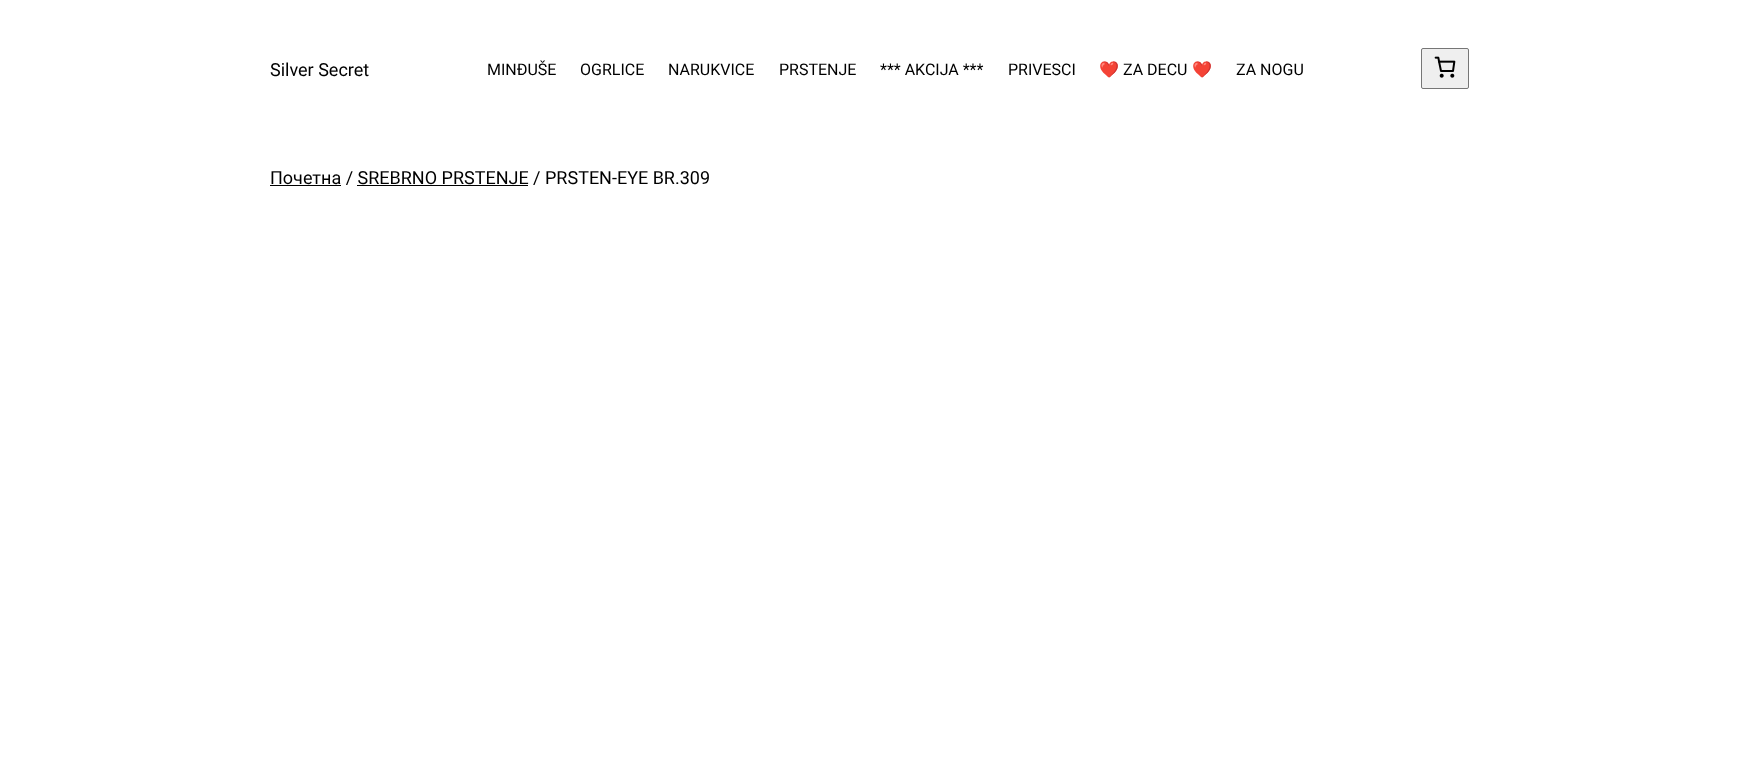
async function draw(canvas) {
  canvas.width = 1739
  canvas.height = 761
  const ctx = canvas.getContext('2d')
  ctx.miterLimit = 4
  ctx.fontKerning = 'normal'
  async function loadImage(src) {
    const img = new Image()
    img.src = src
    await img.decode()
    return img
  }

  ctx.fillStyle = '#fff'
  ctx.fillRect(0, 0, 1739, 761)
  ctx.font = '18px Roboto'
  ctx.fillStyle = '#000'
  ctx.fillText('Silver Secret', 270, 76)
  ctx.font = '16px Roboto'
  ctx.fillText('MINĐUŠE', 487, 75)
  ctx.fillText('OGRLICE', 580, 75)
  ctx.fillText('NARUKVICE', 668, 75)
  ctx.fillText('PRSTENJE', 779, 75)
  ctx.fillText('*** AKCIJA ***', 880, 75)
  ctx.fillText('PRIVESCI', 1008, 75)
  ctx.font = '16px Noto Color Emoji'
  ctx.fillText('❤️', 1099, 75)
  ctx.font = '16px Roboto'
  ctx.fillText('ZA DECU', 1123, 75)
  ctx.font = '16px Noto Color Emoji'
  ctx.fillText('❤️', 1192, 75)
  ctx.font = '16px Roboto'
  ctx.fillText('ZA NOGU', 1236, 75)
  ctx.fillStyle = '#efefef'
  ctx.beginPath()
  ctx.roundRect(1421.5, 48.5, 47, 40, 1.5)
  ctx.fill()
  ctx.strokeStyle = '#767676'
  ctx.stroke()
  ctx.drawImage(await loadImage('image0.png'), 1434, 56, 22, 22)
  ctx.fillStyle = '#000'
  ctx.fillRect(270, 185, 71, 1)
  ctx.font = '18px Roboto'
  ctx.fillText('Почетна / SREBRNO PRSTENJE / PRSTEN-EYE BR.309', 270, 184)
  ctx.fillRect(357, 185, 171, 1)
}

draw(document.querySelector('canvas'))
